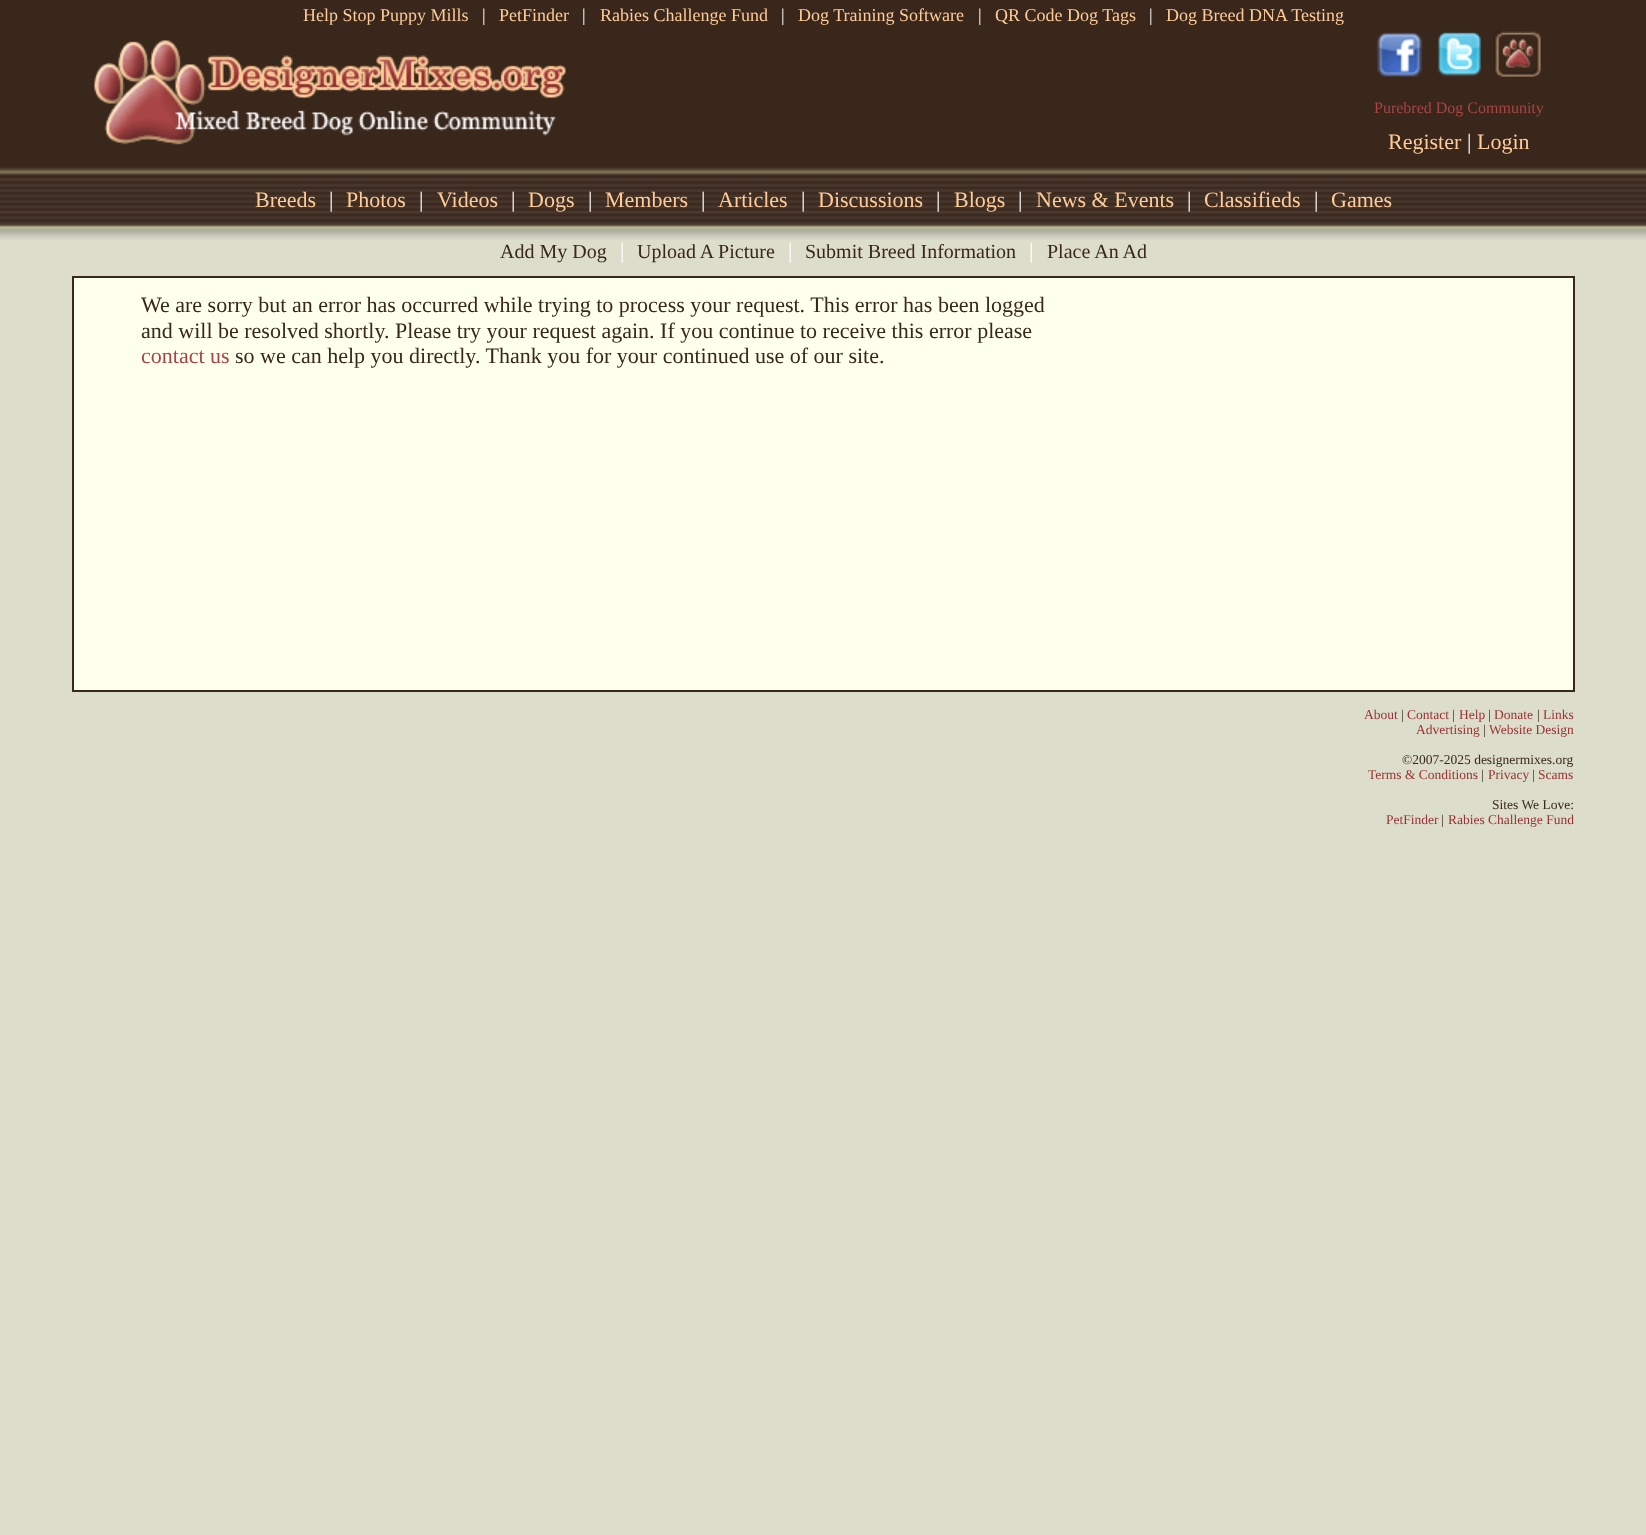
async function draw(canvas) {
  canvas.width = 1646
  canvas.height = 1535
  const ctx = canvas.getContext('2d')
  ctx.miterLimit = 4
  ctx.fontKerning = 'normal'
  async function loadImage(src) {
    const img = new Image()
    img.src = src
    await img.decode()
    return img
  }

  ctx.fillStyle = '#ddc'
  ctx.fillRect(0, 0, 1646, 1535)
  ctx.fillStyle = '#39271c'
  ctx.fillRect(0, 0, 1646, 32)
  ctx.font = '18px Liberation Serif'
  ctx.fillStyle = '#fc9'
  ctx.fillText('Help Stop Puppy Mills', 303, 21)
  ctx.fillStyle = '#fff'
  ctx.fillText('|', 482, 21)
  ctx.fillStyle = '#fc9'
  ctx.fillText('PetFinder', 499, 21)
  ctx.fillStyle = '#fff'
  ctx.fillText('|', 582, 21)
  ctx.fillStyle = '#fc9'
  ctx.fillText('Rabies Challenge Fund', 600, 21)
  ctx.fillStyle = '#fff'
  ctx.fillText('|', 781, 21)
  ctx.fillStyle = '#fc9'
  ctx.fillText('Dog Training Software', 798, 21)
  ctx.fillStyle = '#fff'
  ctx.fillText('|', 978, 21)
  ctx.fillStyle = '#fc9'
  ctx.fillText('QR Code Dog Tags', 995, 21)
  ctx.fillStyle = '#fff'
  ctx.fillText('|', 1149, 21)
  ctx.fillStyle = '#fc9'
  ctx.fillText('Dog Breed DNA Testing', 1166, 21)
  ctx.drawImage(await loadImage('image0.png'), 0, 32, 1646, 208)
  ctx.drawImage(await loadImage('image1.png'), 94, 40, 472, 105)
  ctx.drawImage(await loadImage('image2.png'), 1377, 31, 164, 46)
  ctx.font = '16px Liberation Serif'
  ctx.fillStyle = '#a44'
  ctx.fillText('Purebred Dog Community', 1374, 113)
  ctx.font = '22px Liberation Serif'
  ctx.fillStyle = '#fc9'
  ctx.fillText('Register', 1388, 149)
  ctx.fillStyle = '#fff'
  ctx.fillText('|', 1467, 149)
  ctx.fillStyle = '#fc9'
  ctx.fillText('Login', 1477, 149)
  ctx.fillText('Breeds', 255, 207)
  ctx.fillStyle = '#fff'
  ctx.fillText('|', 329, 207)
  ctx.fillStyle = '#fc9'
  ctx.fillText('Photos', 346, 207)
  ctx.fillStyle = '#fff'
  ctx.fillText('|', 419, 207)
  ctx.fillStyle = '#fc9'
  ctx.fillText('Videos', 437, 207)
  ctx.fillStyle = '#fff'
  ctx.fillText('|', 511, 207)
  ctx.fillStyle = '#fc9'
  ctx.fillText('Dogs', 528, 207)
  ctx.fillStyle = '#fff'
  ctx.fillText('|', 588, 207)
  ctx.fillStyle = '#fc9'
  ctx.fillText('Members', 605, 207)
  ctx.fillStyle = '#fff'
  ctx.fillText('|', 701, 207)
  ctx.fillStyle = '#fc9'
  ctx.fillText('Articles', 718, 207)
  ctx.fillStyle = '#fff'
  ctx.fillText('|', 801, 207)
  ctx.fillStyle = '#fc9'
  ctx.fillText('Discussions', 818, 207)
  ctx.fillStyle = '#fff'
  ctx.fillText('|', 936, 207)
  ctx.fillStyle = '#fc9'
  ctx.fillText('Blogs', 954, 207)
  ctx.fillStyle = '#fff'
  ctx.fillText('|', 1018, 207)
  ctx.fillStyle = '#fc9'
  ctx.fillText('News & Events', 1036, 207)
  ctx.fillStyle = '#fff'
  ctx.fillText('|', 1187, 207)
  ctx.fillStyle = '#fc9'
  ctx.fillText('Classifieds', 1204, 207)
  ctx.fillStyle = '#fff'
  ctx.fillText('|', 1314, 207)
  ctx.fillStyle = '#fc9'
  ctx.fillText('Games', 1331, 207)
  ctx.font = '20px Liberation Serif'
  ctx.fillStyle = '#39271c'
  ctx.fillText('Add My Dog', 500, 258)
  ctx.font = '22px Liberation Serif'
  ctx.fillStyle = '#fff'
  ctx.fillText('|', 620, 258)
  ctx.font = '20px Liberation Serif'
  ctx.fillStyle = '#39271c'
  ctx.fillText('Upload A Picture', 637, 258)
  ctx.font = '22px Liberation Serif'
  ctx.fillStyle = '#fff'
  ctx.fillText('|', 788, 258)
  ctx.font = '20px Liberation Serif'
  ctx.fillStyle = '#39271c'
  ctx.fillText('Submit Breed Information', 805, 258)
  ctx.font = '22px Liberation Serif'
  ctx.fillStyle = '#fff'
  ctx.fillText('|', 1029, 258)
  ctx.font = '20px Liberation Serif'
  ctx.fillStyle = '#39271c'
  ctx.fillText('Place An Ad', 1047, 258)
  ctx.fillStyle = '#ffe'
  ctx.beginPath()
  ctx.rect(73, 277, 1501, 414)
  ctx.fill()
  ctx.strokeStyle = '#39271c'
  ctx.lineWidth = 2
  ctx.stroke()
  ctx.font = '22px Liberation Serif'
  ctx.fillStyle = '#39271c'
  ctx.fillText('We are sorry but an error has occurred while trying to process your request. This error has been logged', 141, 312)
  ctx.fillText('and will be resolved shortly. Please try your request again. If you continue to receive this error please', 141, 338)
  ctx.fillStyle = '#a44'
  ctx.fillText('contact us', 141, 363)
  ctx.fillStyle = '#39271c'
  ctx.fillText('so we can help you directly. Thank you for your continued use of our site.', 235, 363)
  ctx.font = '13.5px Liberation Serif'
  ctx.fillStyle = '#933'
  ctx.fillText('About', 1364, 719)
  ctx.fillStyle = '#39271c'
  ctx.fillText('|', 1401, 719)
  ctx.fillStyle = '#933'
  ctx.fillText('Contact', 1407, 719)
  ctx.fillStyle = '#39271c'
  ctx.fillText('|', 1452, 719)
  ctx.fillStyle = '#933'
  ctx.fillText('Help', 1459, 719)
  ctx.fillStyle = '#39271c'
  ctx.fillText('|', 1488, 719)
  ctx.fillStyle = '#933'
  ctx.fillText('Donate', 1494, 719)
  ctx.fillStyle = '#39271c'
  ctx.fillText('|', 1537, 719)
  ctx.fillStyle = '#933'
  ctx.fillText('Links', 1543, 719)
  ctx.fillText('Advertising', 1416, 734)
  ctx.fillStyle = '#39271c'
  ctx.fillText('|', 1483, 734)
  ctx.fillStyle = '#933'
  ctx.fillText('Website Design', 1489, 734)
  ctx.fillStyle = '#39271c'
  ctx.fillText('©2007-2025 designermixes.org', 1402, 764)
  ctx.fillStyle = '#933'
  ctx.fillText('Terms & Conditions', 1368, 779)
  ctx.fillStyle = '#39271c'
  ctx.fillText('|', 1481, 779)
  ctx.fillStyle = '#933'
  ctx.fillText('Privacy', 1488, 779)
  ctx.fillStyle = '#39271c'
  ctx.fillText('|', 1532, 779)
  ctx.fillStyle = '#933'
  ctx.fillText('Scams', 1538, 779)
  ctx.fillStyle = '#39271c'
  ctx.fillText('Sites We Love:', 1492, 809)
  ctx.fillStyle = '#933'
  ctx.fillText('PetFinder', 1386, 824)
  ctx.fillStyle = '#39271c'
  ctx.fillText('|', 1441, 824)
  ctx.fillStyle = '#933'
  ctx.fillText('Rabies Challenge Fund', 1448, 824)
}

draw(document.querySelector('canvas'))
